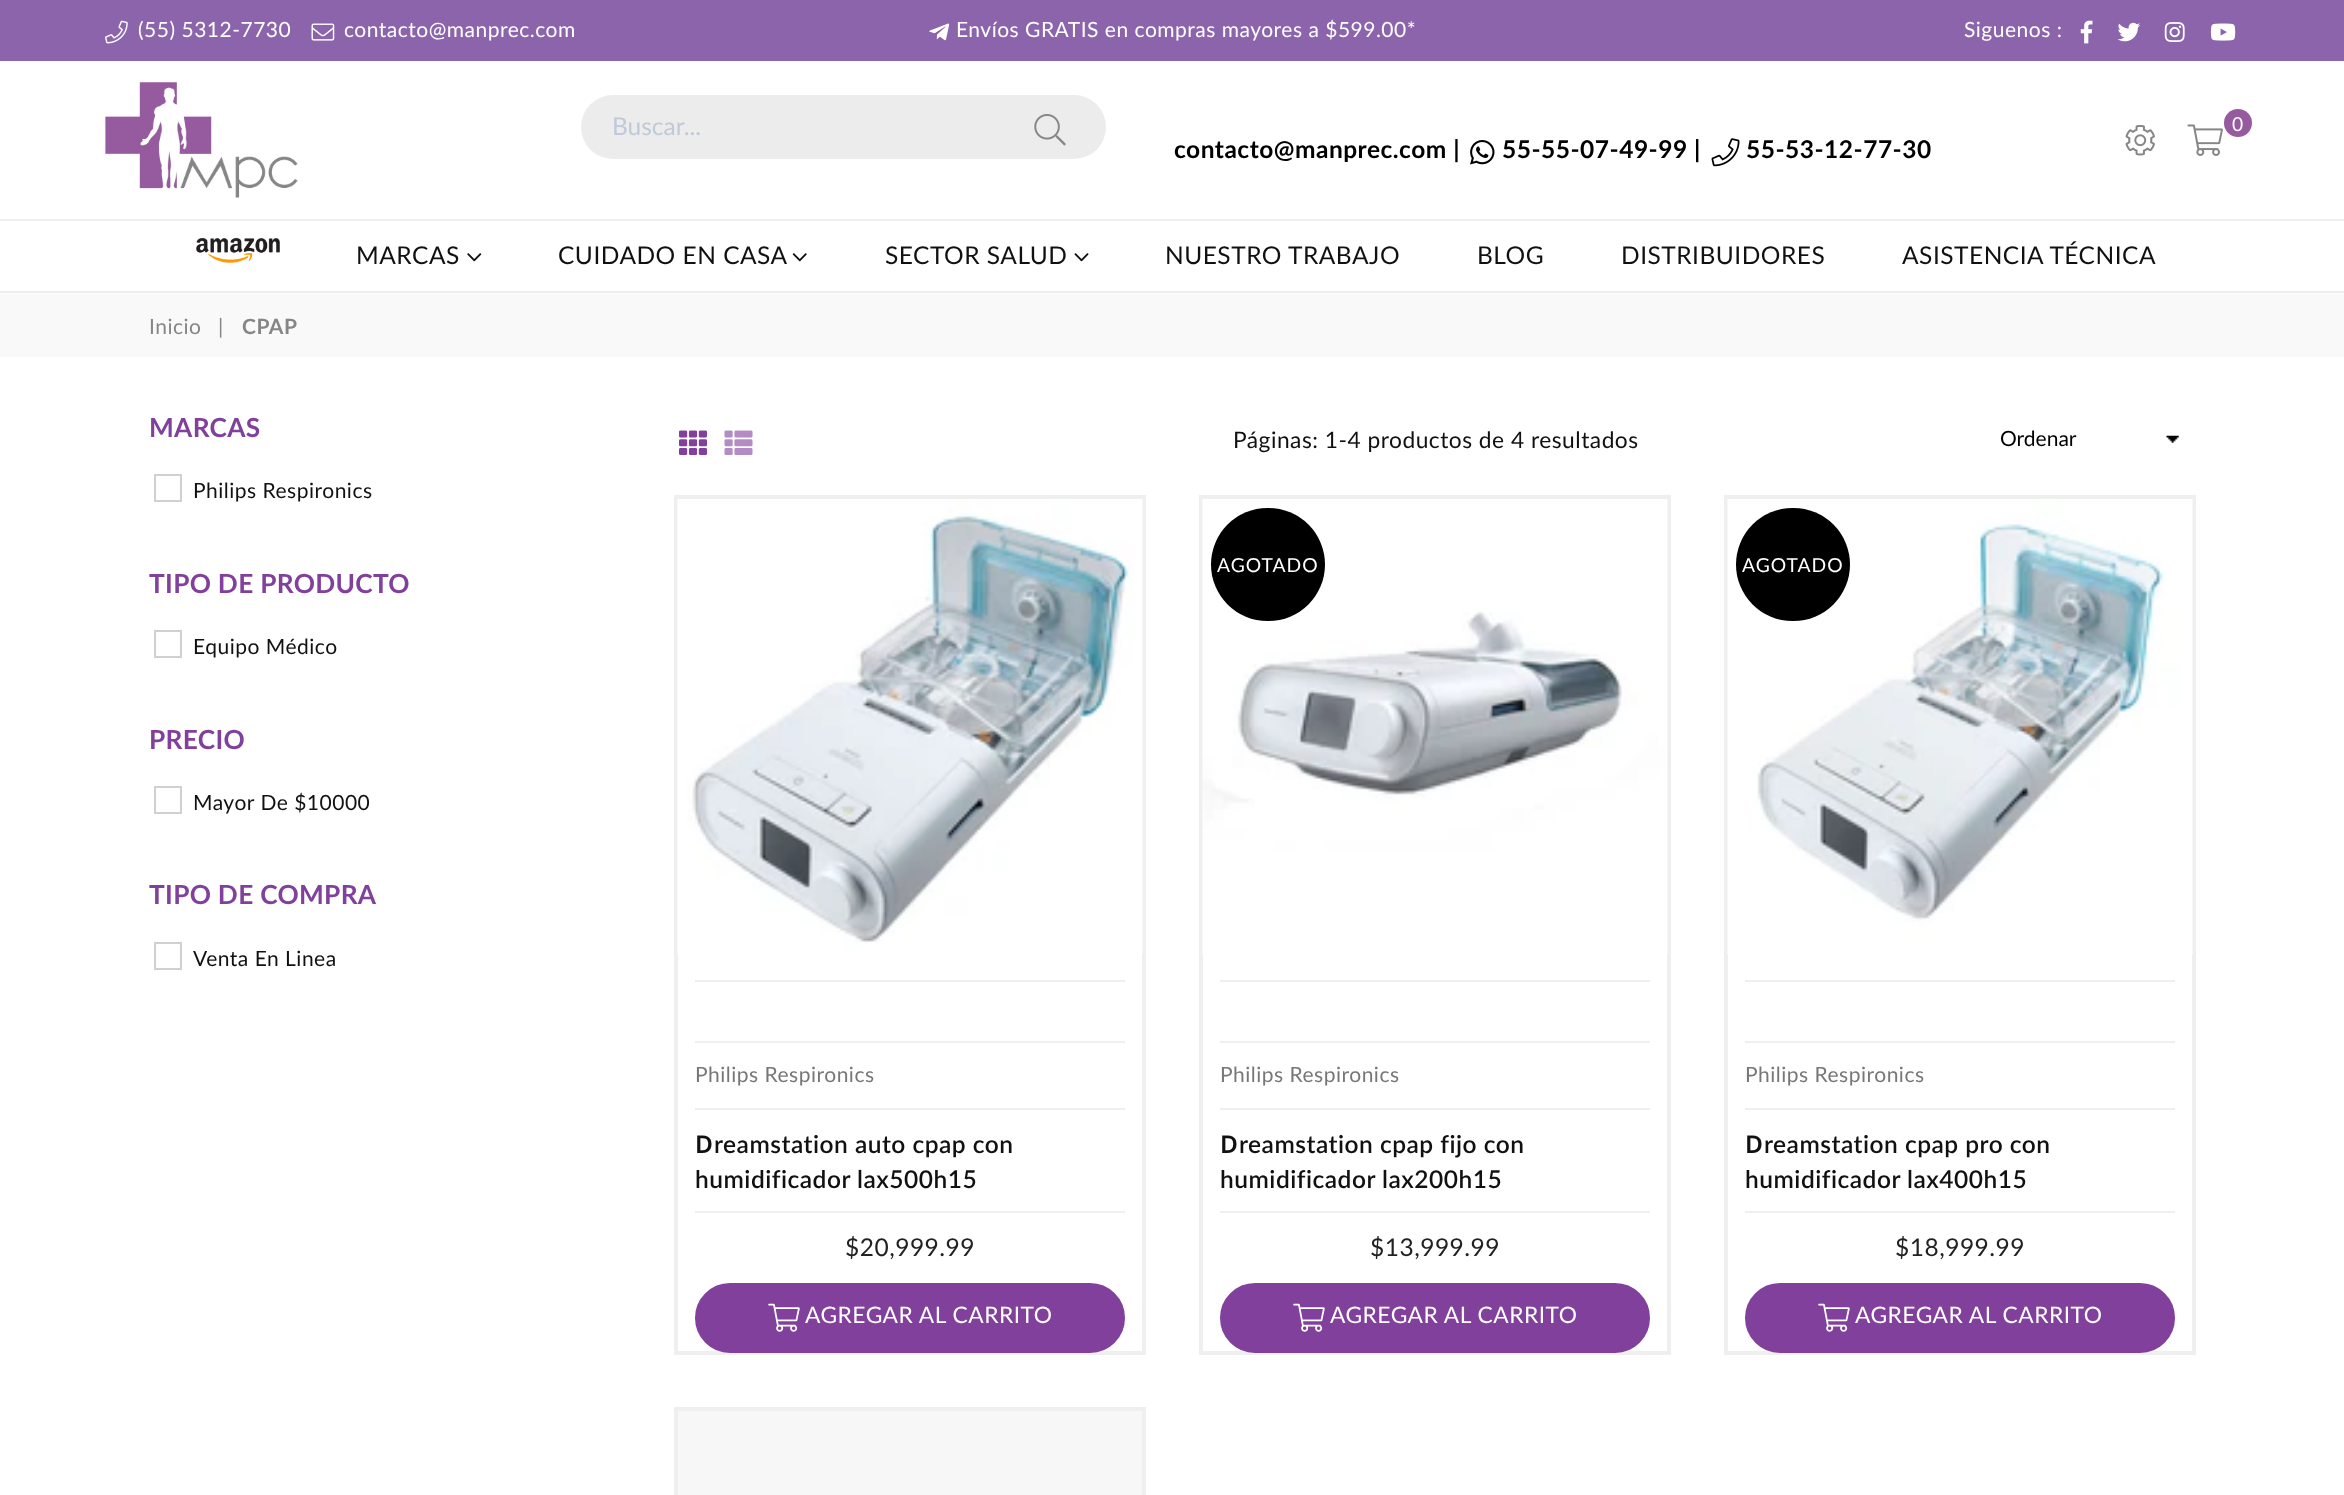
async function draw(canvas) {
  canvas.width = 2344
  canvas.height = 1495
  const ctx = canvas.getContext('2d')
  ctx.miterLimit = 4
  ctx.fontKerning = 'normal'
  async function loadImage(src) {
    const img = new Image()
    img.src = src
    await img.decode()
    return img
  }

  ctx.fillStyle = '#fff'
  ctx.fillRect(0, 0, 2344, 1495)
  ctx.fillStyle = '#8c64ab'
  ctx.fillRect(0, 0, 2344, 61)
  ctx.drawImage(await loadImage('image0.png'), 105, 20, 23, 24)
  ctx.letterSpacing = '0.5px'
  ctx.font = '21px Lato'
  ctx.fillStyle = '#fff'
  ctx.fillText('(55) 5312-7730', 138, 37)
  ctx.drawImage(await loadImage('image1.png'), 311, 23, 24, 18)
  ctx.fillText('contacto@manprec.com', 344, 37)
  ctx.drawImage(await loadImage('image2.png'), 929, 23, 21, 18)
  ctx.fillText('Envíos GRATIS en compras mayores a $599.00*', 956, 37)
  ctx.fillText('Siguenos :', 1964, 37)
  ctx.drawImage(await loadImage('image3.png'), 2080, 20, 13, 24)
  ctx.drawImage(await loadImage('image4.png'), 2117, 22, 24, 20)
  ctx.drawImage(await loadImage('image5.png'), 2164, 22, 21, 20)
  ctx.drawImage(await loadImage('image6.png'), 2210, 23, 26, 18)
  ctx.drawImage(await loadImage('image7.png'), 105, 82, 193, 116)
  ctx.fillStyle = '#ececec'
  ctx.beginPath()
  ctx.roundRect(581, 95, 525, 64, 32)
  ctx.fill()
  ctx.letterSpacing = '0px'
  ctx.font = '24.5px Lato'
  ctx.fillStyle = '#bfcad8'
  ctx.fillText('Buscar...', 612, 135)
  ctx.drawImage(await loadImage('image8.png'), 1034, 114, 32, 32)
  ctx.drawImage(await loadImage('image9.png'), 2125, 125, 30, 31)
  ctx.drawImage(await loadImage('image10.png'), 2187, 124, 36, 32)
  ctx.fillStyle = '#965b9e'
  ctx.beginPath()
  ctx.arc(2238, 123, 14, 0, 2 * Math.PI)
  ctx.fill()
  ctx.letterSpacing = '0.5px'
  ctx.font = '19.25px Lato'
  ctx.fillStyle = '#fff'
  ctx.fillText('0', 2232, 131)
  ctx.font = 'bold 24.5px Lato'
  ctx.fillStyle = '#000'
  ctx.fillText('contacto@manprec.com |', 1174, 158)
  ctx.drawImage(await loadImage('image11.png'), 1470, 140, 25, 25)
  ctx.fillText('55-55-07-49-99 |', 1502, 158)
  ctx.drawImage(await loadImage('image12.png'), 1711, 138, 29, 29)
  ctx.fillText('55-53-12-77-30', 1746, 158)
  ctx.fillStyle = '#eee'
  ctx.fillRect(0, 219, 2344, 2)
  ctx.fillRect(0, 291, 2344, 2)
  ctx.drawImage(await loadImage('image13.png'), 196, 237, 84, 26)
  ctx.font = '24.5px Lato'
  ctx.fillStyle = '#111'
  ctx.fillText('MARCAS', 356, 264)
  ctx.drawImage(await loadImage('image14.png'), 467, 253, 15, 9)
  ctx.fillText('CUIDADO EN CASA', 558, 264)
  ctx.drawImage(await loadImage('image15.png'), 792, 253, 15, 9)
  ctx.fillText('SECTOR SALUD', 885, 264)
  ctx.drawImage(await loadImage('image16.png'), 1074, 253, 15, 9)
  ctx.fillText('NUESTRO TRABAJO', 1165, 264)
  ctx.fillText('BLOG', 1477, 264)
  ctx.fillText('DISTRIBUIDORES', 1621, 264)
  ctx.fillText('ASISTENCIA TÉCNICA', 1902, 264)
  ctx.fillStyle = '#f9f9f9'
  ctx.fillRect(0, 294, 2344, 63)
  ctx.font = '21px Lato'
  ctx.fillStyle = '#868686'
  ctx.fillText('Inicio', 149, 334)
  ctx.fillText('|', 218, 334)
  ctx.font = 'bold 21px Lato'
  ctx.fillText('CPAP', 242, 334)
  ctx.letterSpacing = '0.3px'
  ctx.font = 'bold 26.25px Lato'
  ctx.fillStyle = '#81409b'
  ctx.fillText('MARCAS', 149, 437)
  ctx.strokeStyle = '#d0d0d0'
  ctx.lineWidth = 2
  ctx.strokeRect(155, 475, 26, 26)
  ctx.letterSpacing = '0.5px'
  ctx.font = '21px Lato'
  ctx.fillStyle = '#111'
  ctx.fillText('Philips Respironics', 193, 498)
  ctx.letterSpacing = '0.3px'
  ctx.font = 'bold 26.25px Lato'
  ctx.fillStyle = '#81409b'
  ctx.fillText('TIPO DE PRODUCTO', 149, 593)
  ctx.strokeRect(155, 631, 26, 26)
  ctx.letterSpacing = '0.5px'
  ctx.font = '21px Lato'
  ctx.fillStyle = '#111'
  ctx.fillText('Equipo Médico', 193, 654)
  ctx.letterSpacing = '0.3px'
  ctx.font = 'bold 26.25px Lato'
  ctx.fillStyle = '#81409b'
  ctx.fillText('PRECIO', 149, 749)
  ctx.strokeRect(155, 787, 26, 26)
  ctx.letterSpacing = '0.5px'
  ctx.font = '21px Lato'
  ctx.fillStyle = '#111'
  ctx.fillText('Mayor De $10000', 193, 810)
  ctx.letterSpacing = '0.3px'
  ctx.font = 'bold 26.25px Lato'
  ctx.fillStyle = '#81409b'
  ctx.fillText('TIPO DE COMPRA', 149, 904)
  ctx.strokeRect(155, 943, 26, 26)
  ctx.letterSpacing = '0.5px'
  ctx.font = '21px Lato'
  ctx.fillStyle = '#111'
  ctx.fillText('Venta En Linea', 193, 966)
  ctx.drawImage(await loadImage('image17.png'), 679, 430, 28, 25)
  ctx.drawImage(await loadImage('image18.png'), 724, 430, 29, 25)
  ctx.font = '22.75px Lato'
  ctx.fillText('Páginas: 1-4 productos de 4 resultados', 1233, 448)
  ctx.drawImage(await loadImage('image19.png'), 2166, 435, 13, 8)
  ctx.letterSpacing = '0px'
  ctx.font = '21px Lato'
  ctx.fillStyle = '#000'
  ctx.fillText('Ordenar', 2000, 446)
  ctx.strokeStyle = '#efefef'
  ctx.lineWidth = 4
  ctx.strokeRect(676, 497, 468, 856)
  ctx.drawImage(await loadImage('image20.png'), 677, 499, 466, 455)
  ctx.fillStyle = '#efefef'
  ctx.fillRect(695, 980, 430, 2)
  ctx.fillRect(695, 1041, 430, 2)
  ctx.fillRect(695, 1108, 430, 2)
  ctx.letterSpacing = '0.5px'
  ctx.fillStyle = '#777'
  ctx.fillText('Philips Respironics', 695, 1082)
  ctx.fillStyle = '#efefef'
  ctx.fillRect(695, 1211, 430, 2)
  ctx.font = '600 24.5px Noto Sans'
  ctx.fillStyle = '#111'
  ctx.fillText('D', 695, 1153)
  ctx.font = '600 24.5px Lato'
  ctx.fillText('reamstation auto cpap con', 714, 1153)
  ctx.fillText('humidificador lax500h15', 695, 1188)
  ctx.font = '24.5px Lato'
  ctx.fillStyle = '#222'
  ctx.fillText('$20,999.99', 845, 1256)
  ctx.fillStyle = '#81409b'
  ctx.beginPath()
  ctx.roundRect(697, 1285, 426, 66, 33)
  ctx.fill()
  ctx.strokeStyle = '#81409b'
  ctx.stroke()
  ctx.drawImage(await loadImage('image21.png'), 768, 1303, 32, 29)
  ctx.font = '22.75px Lato'
  ctx.fillStyle = '#fff'
  ctx.fillText('AGREGAR AL CARRITO', 805, 1323)
  ctx.strokeStyle = '#efefef'
  ctx.strokeRect(1201, 497, 468, 856)
  ctx.drawImage(await loadImage('image22.png'), 1202, 499, 466, 455)
  ctx.fillStyle = '#000'
  ctx.beginPath()
  ctx.roundRect(1211, 508, 114, 113, 56.5)
  ctx.fill()
  ctx.letterSpacing = '1px'
  ctx.font = '19.25px Lato'
  ctx.fillStyle = '#fff'
  ctx.fillText('AGOTADO', 1217, 572)
  ctx.fillStyle = '#efefef'
  ctx.fillRect(1220, 980, 430, 2)
  ctx.fillRect(1220, 1041, 430, 2)
  ctx.fillRect(1220, 1108, 430, 2)
  ctx.letterSpacing = '0.5px'
  ctx.font = '21px Lato'
  ctx.fillStyle = '#777'
  ctx.fillText('Philips Respironics', 1220, 1082)
  ctx.fillStyle = '#efefef'
  ctx.fillRect(1220, 1211, 430, 2)
  ctx.font = '600 24.5px Noto Sans'
  ctx.fillStyle = '#111'
  ctx.fillText('D', 1220, 1153)
  ctx.font = '600 24.5px Lato'
  ctx.fillText('reamstation cpap fijo con', 1239, 1153)
  ctx.fillText('humidificador lax200h15', 1220, 1188)
  ctx.font = '24.5px Lato'
  ctx.fillStyle = '#222'
  ctx.fillText('$13,999.99', 1370, 1256)
  ctx.fillStyle = '#81409b'
  ctx.beginPath()
  ctx.roundRect(1222, 1285, 426, 66, 33)
  ctx.fill()
  ctx.strokeStyle = '#81409b'
  ctx.stroke()
  ctx.drawImage(await loadImage('image21.png'), 1293, 1303, 32, 29)
  ctx.font = '22.75px Lato'
  ctx.fillStyle = '#fff'
  ctx.fillText('AGREGAR AL CARRITO', 1330, 1323)
  ctx.strokeStyle = '#efefef'
  ctx.strokeRect(1726, 497, 468, 856)
  ctx.drawImage(await loadImage('image23.png'), 1727, 499, 466, 455)
  ctx.fillStyle = '#000'
  ctx.beginPath()
  ctx.roundRect(1736, 508, 114, 113, 56.5)
  ctx.fill()
  ctx.letterSpacing = '1px'
  ctx.font = '19.25px Lato'
  ctx.fillStyle = '#fff'
  ctx.fillText('AGOTADO', 1742, 572)
  ctx.fillStyle = '#efefef'
  ctx.fillRect(1745, 980, 430, 2)
  ctx.fillRect(1745, 1041, 430, 2)
  ctx.fillRect(1745, 1108, 430, 2)
  ctx.letterSpacing = '0.5px'
  ctx.font = '21px Lato'
  ctx.fillStyle = '#777'
  ctx.fillText('Philips Respironics', 1745, 1082)
  ctx.fillStyle = '#efefef'
  ctx.fillRect(1745, 1211, 430, 2)
  ctx.font = '600 24.5px Noto Sans'
  ctx.fillStyle = '#111'
  ctx.fillText('D', 1745, 1153)
  ctx.font = '600 24.5px Lato'
  ctx.fillText('reamstation cpap pro con', 1764, 1153)
  ctx.fillText('humidificador lax400h15', 1745, 1188)
  ctx.font = '24.5px Lato'
  ctx.fillStyle = '#222'
  ctx.fillText('$18,999.99', 1895, 1256)
  ctx.fillStyle = '#81409b'
  ctx.beginPath()
  ctx.roundRect(1747, 1285, 426, 66, 33)
  ctx.fill()
  ctx.strokeStyle = '#81409b'
  ctx.stroke()
  ctx.drawImage(await loadImage('image21.png'), 1818, 1303, 32, 29)
  ctx.font = '22.75px Lato'
  ctx.fillStyle = '#fff'
  ctx.fillText('AGREGAR AL CARRITO', 1855, 1323)
  ctx.strokeStyle = '#efefef'
  ctx.strokeRect(676, 1409, 468, 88)
  ctx.fillStyle = '#f7f7f7'
  ctx.fillRect(678, 1411, 464, 84)
}

draw(document.querySelector('canvas'))
